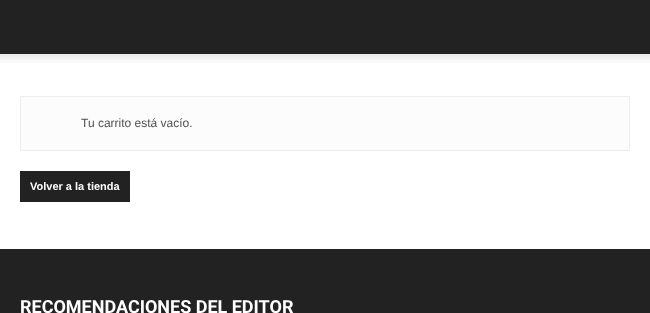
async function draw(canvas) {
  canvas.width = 650
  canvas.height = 313
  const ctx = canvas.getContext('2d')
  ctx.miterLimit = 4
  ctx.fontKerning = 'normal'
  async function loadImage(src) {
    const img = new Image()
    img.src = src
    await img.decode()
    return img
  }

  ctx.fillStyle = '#fff'
  ctx.fillRect(0, 0, 650, 313)
  ctx.fillStyle = '#222'
  ctx.fillRect(0, 0, 650, 54)
  ctx.drawImage(await loadImage('image0.png'), 0, 54, 650, 9)
  ctx.fillStyle = '#fcfcfc'
  ctx.beginPath()
  ctx.rect(20.5, 96.5, 609, 54)
  ctx.fill()
  ctx.strokeStyle = '#ededed'
  ctx.stroke()
  ctx.font = '12px Liberation Sans'
  ctx.fillStyle = '#515151'
  ctx.fillText('Tu carrito está vacío.', 81, 127)
  ctx.fillStyle = '#222'
  ctx.fillRect(20, 171, 110, 31)
  ctx.font = 'bold 11px Liberation Sans'
  ctx.fillStyle = '#fff'
  ctx.fillText('Volver a la tienda', 30, 190)
  ctx.fillStyle = '#222'
  ctx.fillRect(0, 249, 650, 64)
  ctx.font = 'bold 18px Roboto'
  ctx.fillStyle = '#fff'
  ctx.fillText('RECOMENDACIONES DEL EDITOR', 20, 313)
}

draw(document.querySelector('canvas'))
